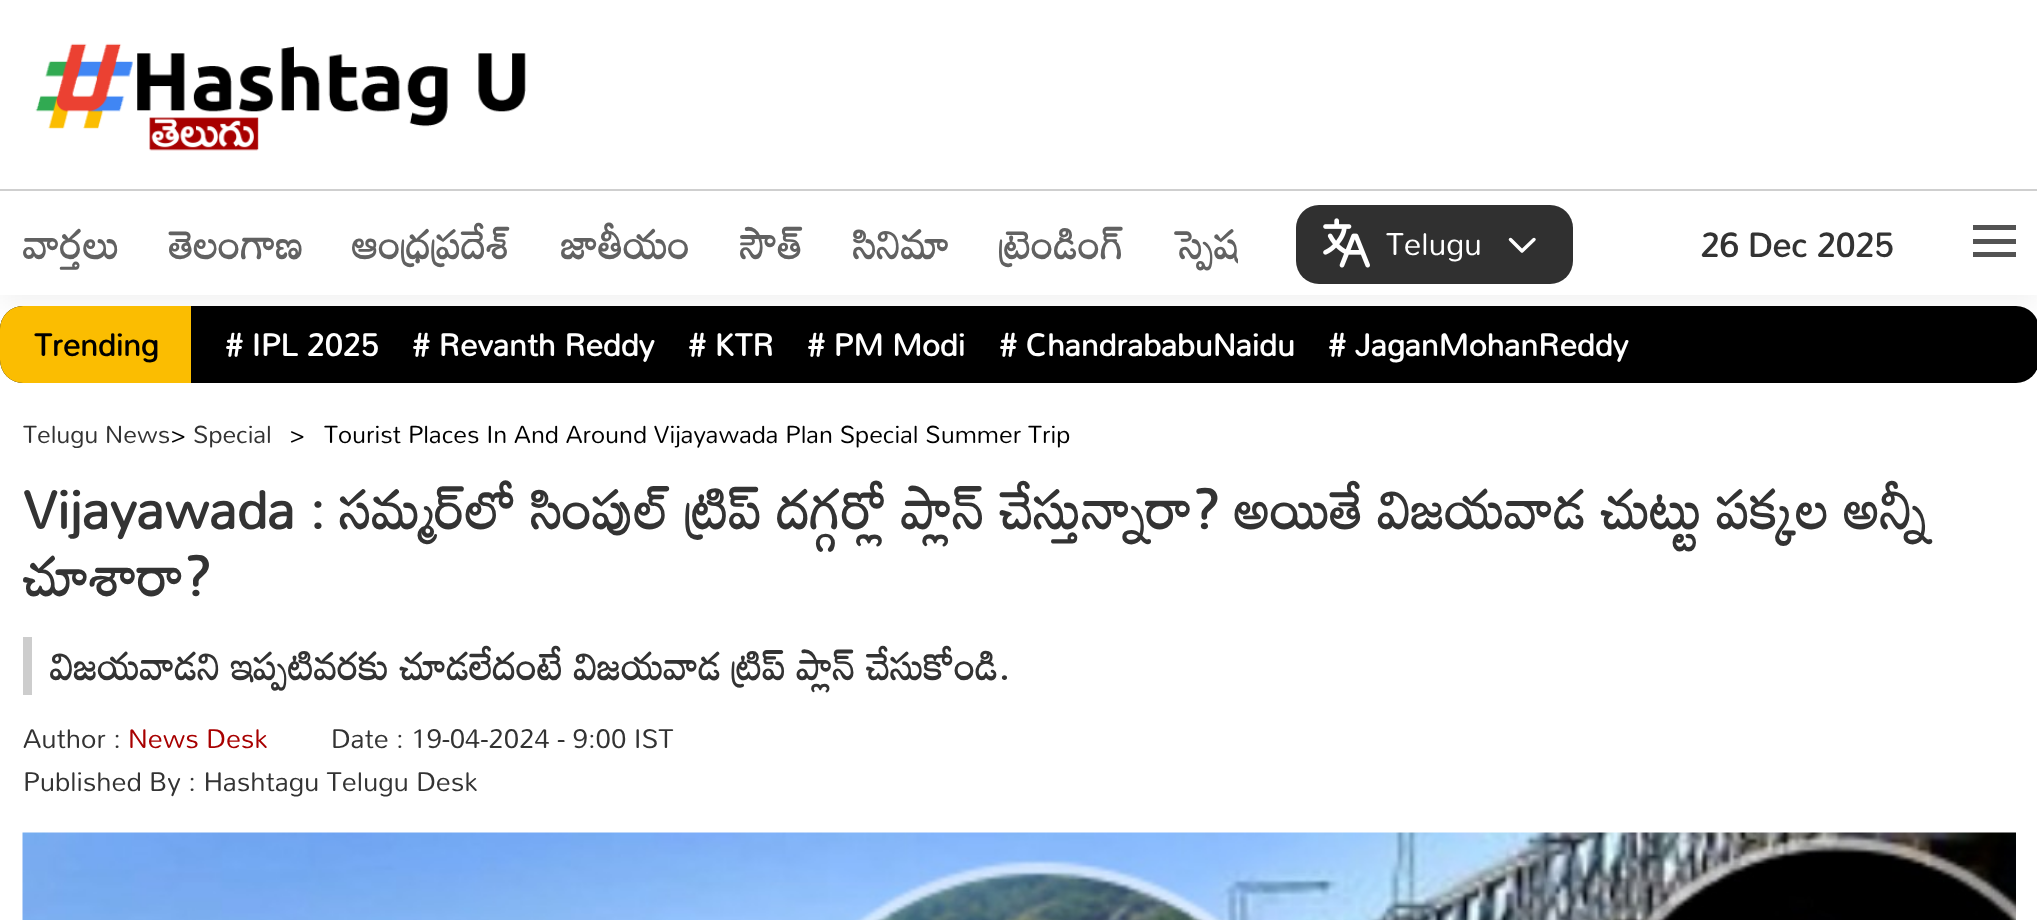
async function draw(canvas) {
  canvas.width = 2037
  canvas.height = 920
  const ctx = canvas.getContext('2d')
  ctx.miterLimit = 4
  ctx.fontKerning = 'normal'
  async function loadImage(src) {
    const img = new Image()
    img.src = src
    await img.decode()
    return img
  }

  ctx.fillStyle = '#fff'
  ctx.fillRect(0, 0, 2037, 920)
  ctx.fillStyle = '#0000000d'
  ctx.filter = 'blur(13.5px)'
  ctx.beginPath()
  ctx.rect(0, 9, 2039, 295)
  ctx.fill()
  ctx.filter = 'none'
  ctx.fillStyle = '#fff'
  ctx.fillRect(0, 0, 2037, 295)
  ctx.drawImage(await loadImage('image0.png'), 35, 43, 491, 108)
  ctx.fillStyle = '#cfcfcf'
  ctx.fillRect(0, 189, 2037, 2)
  ctx.save()
  ctx.beginPath()
  ctx.rect(23, 191, 1215, 104)
  ctx.clip()
  ctx.font = 'bold 40.5px Mandali'
  ctx.fillStyle = '#616161'
  ctx.fillText('వార్తలు', 23, 259)
  ctx.restore()
  ctx.font = 'bold 40.5px Mandali'
  ctx.fillStyle = '#616161'
  ctx.fillText('తెలంగాణ', 169, 259)
  ctx.fillText('ఆంధ్రప్రదేశ్', 352, 259)
  ctx.fillText('జాతీయం', 561, 259)
  ctx.fillText('సౌత్', 740, 259)
  ctx.fillText('సినిమా', 853, 259)
  ctx.fillText('ట్రెండింగ్', 999, 259)
  ctx.save()
  ctx.beginPath()
  ctx.rect(23, 191, 1215, 104)
  ctx.clip()
  ctx.fillText('స్పెష', 1175, 259)
  ctx.restore()
  ctx.fillStyle = '#303030'
  ctx.beginPath()
  ctx.roundRect(1296, 205, 277, 79, 23)
  ctx.fill()
  ctx.drawImage(await loadImage('image1.png'), 1323, 218, 47, 50)
  ctx.font = '31.5px Mandali'
  ctx.fillStyle = '#fff'
  ctx.fillText('Telugu', 1386, 255)
  ctx.beginPath()
  ctx.moveTo(1510.5, 239.5)
  ctx.lineTo(1522, 251)
  ctx.lineTo(1534, 239.5)
  ctx.strokeStyle = '#fff'
  ctx.lineWidth = 3.5
  ctx.lineCap = 'round'
  ctx.lineJoin = 'round'
  ctx.stroke()
  ctx.font = 'bold 33.75px Mandali'
  ctx.fillStyle = '#333'
  ctx.fillText('26 Dec 2025', 1700, 257)
  ctx.fillStyle = '#535353'
  ctx.fillRect(1973, 225, 43, 5)
  ctx.fillRect(1973, 239, 43, 5)
  ctx.fillRect(1973, 252, 43, 5)
  ctx.fillStyle = '#000'
  ctx.beginPath()
  ctx.roundRect(0, 306, 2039, 77, 23)
  ctx.fill()
  ctx.fillStyle = '#fbbd01'
  ctx.beginPath()
  ctx.roundRect(0, 306, 191, 77, [23, 0, 0, 23])
  ctx.fill()
  ctx.font = 'bold 31.5px Mandali'
  ctx.fillStyle = '#000'
  ctx.fillText('Trending', 34, 356)
  ctx.fillStyle = '#fff'
  ctx.fillText('# IPL 2025', 225, 356)
  ctx.fillText('# Revanth Reddy', 412, 356)
  ctx.fillText('# KTR', 688, 356)
  ctx.fillText('# PM Modi', 807, 356)
  ctx.fillText('# ChandrababuNaidu', 999, 356)
  ctx.fillText('# JaganMohanReddy', 1328, 356)
  ctx.font = '24.75px Mandali'
  ctx.fillStyle = '#333'
  ctx.fillText('Telugu News', 23, 443)
  ctx.fillStyle = '#000'
  ctx.fillText('>', 170, 443)
  ctx.fillStyle = '#333'
  ctx.fillText('Special', 193, 443)
  ctx.fillStyle = '#000'
  ctx.fillText('>', 289, 443)
  ctx.fillText('Tourist Places In And Around Vijayawada Plan Special Summer Trip', 324, 443)
  ctx.font = 'bold 54px Mandali'
  ctx.fillStyle = '#333'
  ctx.fillText('Vijayawada : సమ్మర్‌లో సింపుల్ ట్రిప్ దగ్గర్లో ప్లాన్ చేస్తున్నారా? అయితే విజయవాడ చుట్టు పక్కల అన్నీ', 23, 529)
  ctx.fillText('చూశారా?', 23, 596)
  ctx.fillStyle = '#cdcdcd'
  ctx.fillRect(23, 637, 9, 58)
  ctx.font = 'bold 38.25px Mandali'
  ctx.fillStyle = '#333'
  ctx.fillText('విజయవాడని ఇప్పటివరకు చూడలేదంటే విజయవాడ ట్రిప్ ప్లాన్ చేసుకోండి.', 50, 680)
  ctx.font = '27px Mandali'
  ctx.fillText('Author :', 23, 748)
  ctx.fillStyle = '#a80000'
  ctx.fillText('News Desk', 128, 748)
  ctx.fillStyle = '#333'
  ctx.fillText('Date : 19-04-2024 - 9:00 IST', 331, 748)
  ctx.fillText('Published By : Hashtagu Telugu Desk', 23, 791)
  ctx.drawImage(await loadImage('image2.png'), 22, 832, 1994, 88)
}

draw(document.querySelector('canvas'))
